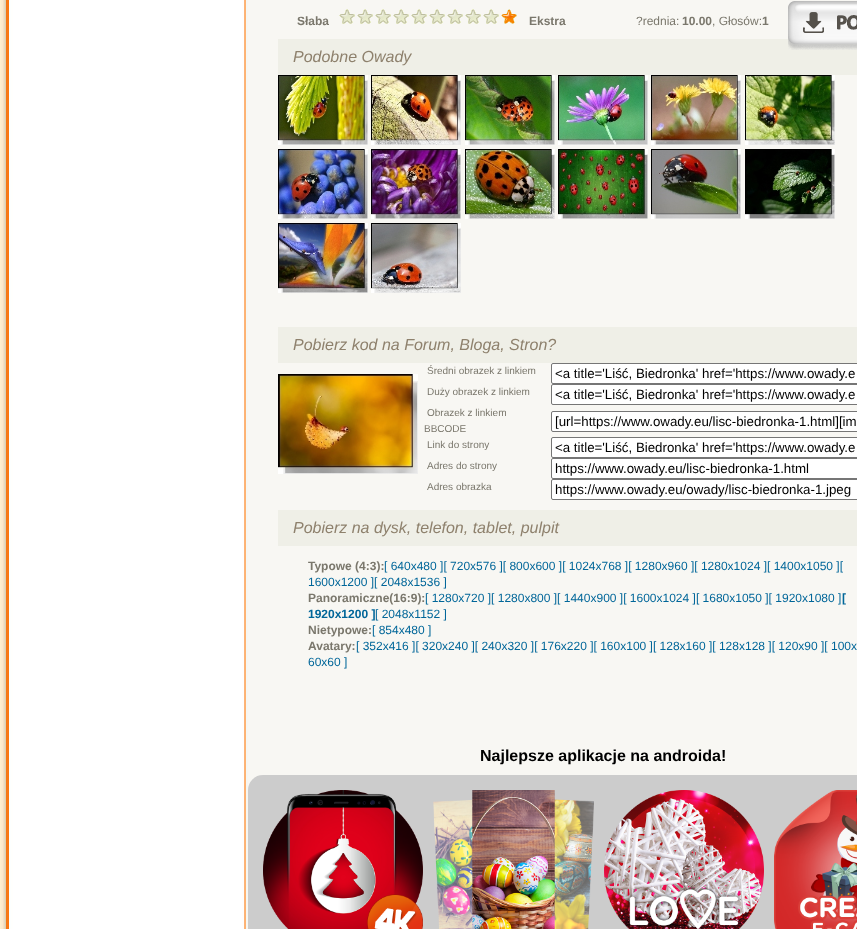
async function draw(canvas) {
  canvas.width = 857
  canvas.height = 929
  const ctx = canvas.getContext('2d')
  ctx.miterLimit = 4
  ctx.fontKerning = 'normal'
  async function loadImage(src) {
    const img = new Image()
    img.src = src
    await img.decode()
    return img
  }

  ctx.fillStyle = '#ffefce'
  ctx.fillRect(0, 0, 857, 929)
  ctx.drawImage(await loadImage('image0.png'), 1, 0, 856, 929)
  ctx.font = 'bold 12px Liberation Sans'
  ctx.fillStyle = '#7a776c'
  ctx.fillText('Słaba', 297, 25)
  ctx.drawImage(await loadImage('image1.png'), 339, 9, 16, 15)
  ctx.drawImage(await loadImage('image1.png'), 357, 9, 16, 15)
  ctx.drawImage(await loadImage('image1.png'), 375, 9, 16, 15)
  ctx.drawImage(await loadImage('image1.png'), 393, 9, 16, 15)
  ctx.drawImage(await loadImage('image1.png'), 411, 9, 16, 15)
  ctx.drawImage(await loadImage('image1.png'), 429, 9, 16, 15)
  ctx.drawImage(await loadImage('image1.png'), 447, 9, 16, 15)
  ctx.drawImage(await loadImage('image1.png'), 465, 9, 16, 15)
  ctx.drawImage(await loadImage('image1.png'), 483, 9, 16, 15)
  ctx.drawImage(await loadImage('image2.png'), 501, 9, 16, 15)
  ctx.fillText('Ekstra', 529, 25)
  ctx.font = '12px Liberation Sans'
  ctx.fillText('?rednia:', 636, 25)
  ctx.font = 'bold 12px Liberation Sans'
  ctx.fillText('10.00', 682, 25)
  ctx.font = '12px Liberation Sans'
  ctx.fillText(', Głosów:', 712, 25)
  ctx.font = 'bold 12px Liberation Sans'
  ctx.fillText('1', 762, 25)
  ctx.fillStyle = '#efefe7'
  ctx.fillRect(278, 39, 579, 36)
  ctx.drawImage(await loadImage('image3.png'), 788, 1, 69, 49)
  ctx.font = 'italic 16px Liberation Sans'
  ctx.fillStyle = '#8e816d'
  ctx.fillText('Podobne Owady', 293, 62)
  ctx.drawImage(await loadImage('image4.png'), 278, 75, 90, 70)
  ctx.drawImage(await loadImage('image5.png'), 371, 75, 90, 70)
  ctx.drawImage(await loadImage('image6.png'), 465, 75, 90, 70)
  ctx.drawImage(await loadImage('image7.png'), 558, 75, 90, 70)
  ctx.drawImage(await loadImage('image8.png'), 651, 75, 90, 70)
  ctx.drawImage(await loadImage('image9.png'), 745, 75, 90, 70)
  ctx.drawImage(await loadImage('image10.png'), 278, 149, 90, 70)
  ctx.drawImage(await loadImage('image11.png'), 371, 149, 90, 70)
  ctx.drawImage(await loadImage('image12.png'), 465, 149, 90, 70)
  ctx.drawImage(await loadImage('image13.png'), 558, 149, 90, 70)
  ctx.drawImage(await loadImage('image14.png'), 651, 149, 90, 70)
  ctx.drawImage(await loadImage('image15.png'), 745, 149, 90, 70)
  ctx.drawImage(await loadImage('image16.png'), 278, 223, 90, 70)
  ctx.drawImage(await loadImage('image17.png'), 371, 223, 90, 70)
  ctx.fillStyle = '#efefe7'
  ctx.fillRect(278, 327, 579, 36)
  ctx.fillStyle = '#8e816d'
  ctx.fillText('Pobierz kod na Forum, Bloga, Stron?', 293, 350)
  ctx.drawImage(await loadImage('image18.png'), 278, 374, 140, 100)
  ctx.font = '10px Liberation Sans'
  ctx.fillStyle = '#7a776c'
  ctx.fillText('Średni obrazek z linkiem', 427, 374)
  ctx.fillStyle = '#fff'
  ctx.beginPath()
  ctx.roundRect(551.5, 363.5, 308, 20, 1.5)
  ctx.fill()
  ctx.strokeStyle = '#767676'
  ctx.stroke()
  ctx.font = '13.3px Liberation Sans'
  ctx.fillStyle = '#000'
  ctx.fillText('<a title=\'Liść, Biedronka\' href=\'https://www.owady.e', 555, 378)
  ctx.font = '10px Liberation Sans'
  ctx.fillStyle = '#7a776c'
  ctx.fillText('Duży obrazek z linkiem', 427, 395)
  ctx.fillStyle = '#fff'
  ctx.beginPath()
  ctx.roundRect(551.5, 384.5, 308, 20, 1.5)
  ctx.fill()
  ctx.stroke()
  ctx.font = '13.3px Liberation Sans'
  ctx.fillStyle = '#000'
  ctx.fillText('<a title=\'Liść, Biedronka\' href=\'https://www.owady.e', 555, 399)
  ctx.font = '10px Liberation Sans'
  ctx.fillStyle = '#7a776c'
  ctx.fillText('Obrazek z linkiem', 427, 416)
  ctx.fillText('BBCODE', 424, 432)
  ctx.fillStyle = '#fff'
  ctx.beginPath()
  ctx.roundRect(551.5, 411.5, 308, 20, 1.5)
  ctx.fill()
  ctx.stroke()
  ctx.font = '13.3px Liberation Sans'
  ctx.fillStyle = '#000'
  ctx.fillText('[url=https://www.owady.eu/lisc-biedronka-1.html][im', 555, 426)
  ctx.font = '10px Liberation Sans'
  ctx.fillStyle = '#7a776c'
  ctx.fillText('Link do strony', 427, 448)
  ctx.fillStyle = '#fff'
  ctx.beginPath()
  ctx.roundRect(551.5, 437.5, 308, 20, 1.5)
  ctx.fill()
  ctx.stroke()
  ctx.font = '13.3px Liberation Sans'
  ctx.fillStyle = '#000'
  ctx.fillText('<a title=\'Liść, Biedronka\' href=\'https://www.owady.e', 555, 452)
  ctx.font = '10px Liberation Sans'
  ctx.fillStyle = '#7a776c'
  ctx.fillText('Adres do strony', 427, 469)
  ctx.fillStyle = '#fff'
  ctx.beginPath()
  ctx.roundRect(551.5, 458.5, 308, 20, 1.5)
  ctx.fill()
  ctx.stroke()
  ctx.font = '13.3px Liberation Sans'
  ctx.fillStyle = '#000'
  ctx.fillText('https://www.owady.eu/lisc-biedronka-1.html', 555, 473)
  ctx.font = '10px Liberation Sans'
  ctx.fillStyle = '#7a776c'
  ctx.fillText('Adres obrazka', 427, 490)
  ctx.fillStyle = '#fff'
  ctx.beginPath()
  ctx.roundRect(551.5, 479.5, 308, 20, 1.5)
  ctx.fill()
  ctx.stroke()
  ctx.font = '13.3px Liberation Sans'
  ctx.fillStyle = '#000'
  ctx.fillText('https://www.owady.eu/owady/lisc-biedronka-1.jpeg', 555, 494)
  ctx.fillStyle = '#efefe7'
  ctx.fillRect(278, 510, 579, 36)
  ctx.font = 'italic 16px Liberation Sans'
  ctx.fillStyle = '#8e816d'
  ctx.fillText('Pobierz na dysk, telefon, tablet, pulpit', 293, 533)
  ctx.font = 'bold 12px Liberation Sans'
  ctx.fillStyle = '#7a776c'
  ctx.fillText('Typowe (4:3):', 308, 570)
  ctx.font = '12px Liberation Sans'
  ctx.fillStyle = '#069'
  ctx.fillText('[ 640x480 ][ 720x576 ][ 800x600 ][ 1024x768 ][ 1280x960 ][ 1280x1024 ][ 1400x1050 ][', 384, 570)
  ctx.fillText('1600x1200 ][ 2048x1536 ]', 308, 586)
  ctx.font = 'bold 12px Liberation Sans'
  ctx.fillStyle = '#7a776c'
  ctx.fillText('Panoramiczne(16:9):', 308, 602)
  ctx.font = '12px Liberation Sans'
  ctx.fillStyle = '#069'
  ctx.fillText('[ 1280x720 ][ 1280x800 ][ 1440x900 ][ 1600x1024 ][ 1680x1050 ][ 1920x1080 ]', 425, 602)
  ctx.font = 'bold 12px Liberation Sans'
  ctx.fillText('[', 842, 602)
  ctx.fillText('1920x1200 ]', 308, 618)
  ctx.font = '12px Liberation Sans'
  ctx.fillText('[ 2048x1152 ]', 375, 618)
  ctx.font = 'bold 12px Liberation Sans'
  ctx.fillStyle = '#7a776c'
  ctx.fillText('Nietypowe:', 308, 634)
  ctx.font = '12px Liberation Sans'
  ctx.fillStyle = '#069'
  ctx.fillText('[ 854x480 ]', 372, 634)
  ctx.font = 'bold 12px Liberation Sans'
  ctx.fillStyle = '#7a776c'
  ctx.fillText('Avatary:', 308, 650)
  ctx.font = '12px Liberation Sans'
  ctx.fillStyle = '#069'
  ctx.fillText('[ 352x416 ][ 320x240 ][ 240x320 ][ 176x220 ][ 160x100 ][ 128x160 ][ 128x128 ][ 120x90 ][ 100x', 356, 650)
  ctx.fillText('60x60 ]', 308, 666)
  ctx.font = 'bold 16px Liberation Sans'
  ctx.fillStyle = '#000'
  ctx.fillText('Najlepsze aplikacje na androida!', 480, 761)
  ctx.fillStyle = '#ccc'
  ctx.beginPath()
  ctx.roundRect(248, 775, 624, 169, 15)
  ctx.fill()
  ctx.drawImage(await loadImage('image19.png'), 263, 790, 160, 139)
  ctx.drawImage(await loadImage('image20.png'), 433, 790, 161, 139)
  ctx.drawImage(await loadImage('image21.png'), 604, 790, 160, 139)
  ctx.drawImage(await loadImage('image22.png'), 774, 790, 83, 139)
}

draw(document.querySelector('canvas'))
